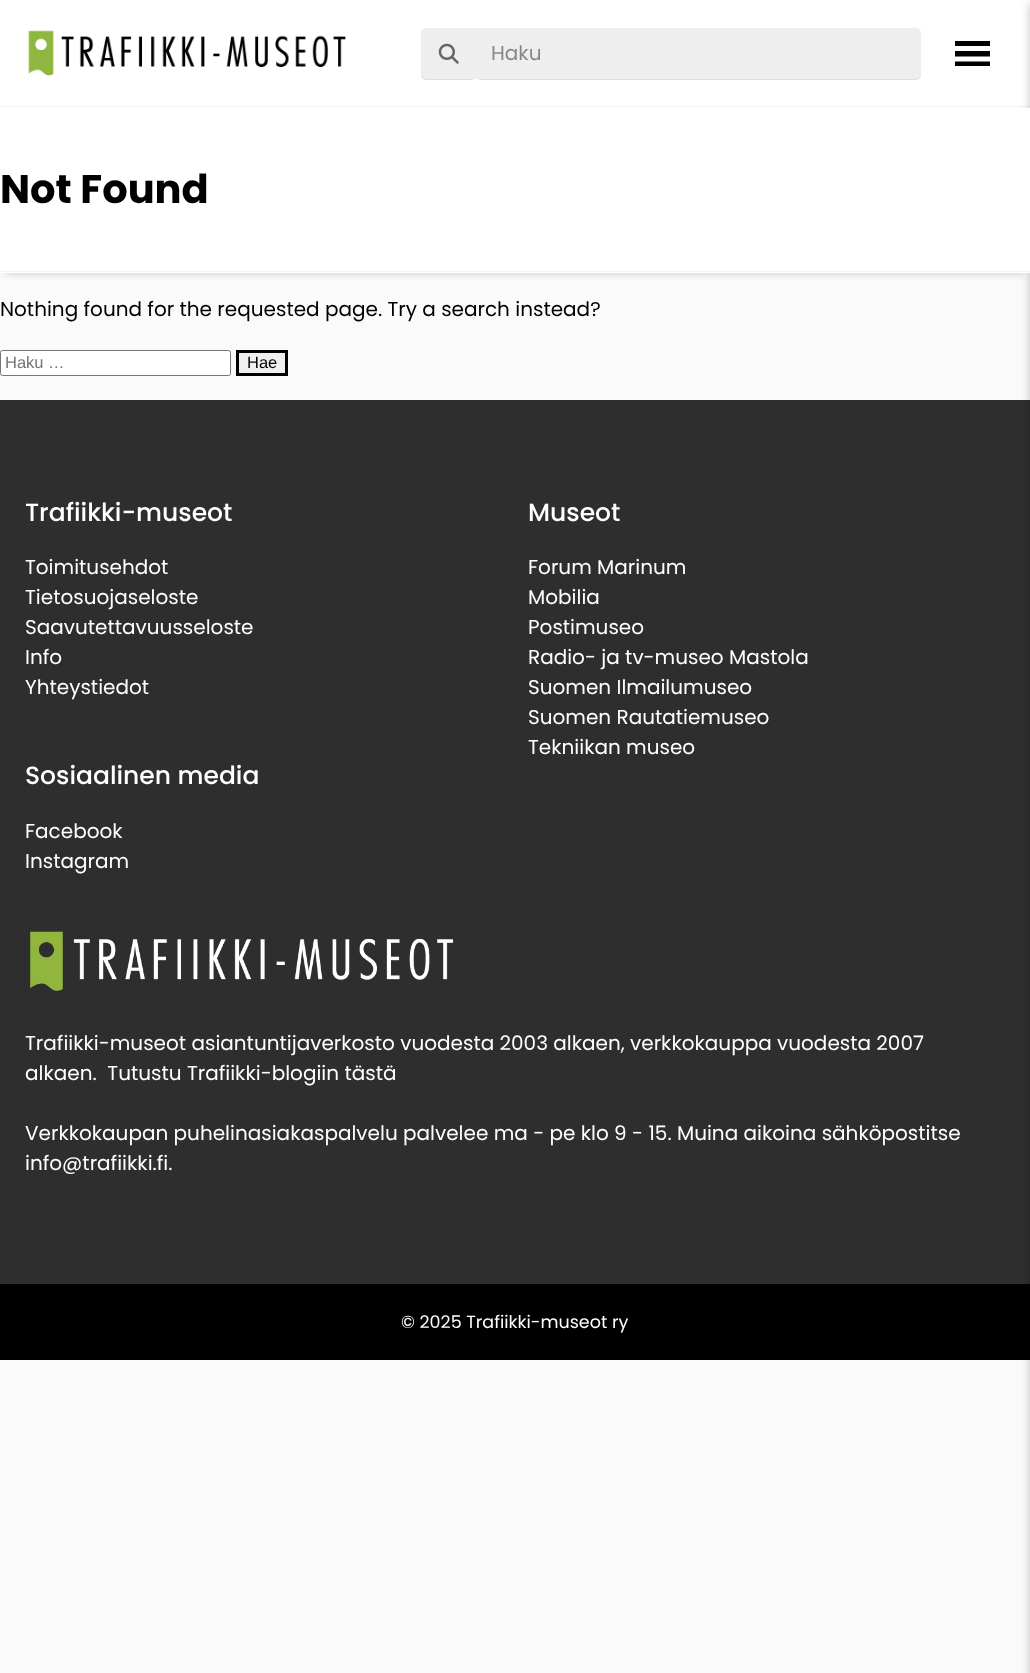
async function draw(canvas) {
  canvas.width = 1030
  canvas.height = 1673
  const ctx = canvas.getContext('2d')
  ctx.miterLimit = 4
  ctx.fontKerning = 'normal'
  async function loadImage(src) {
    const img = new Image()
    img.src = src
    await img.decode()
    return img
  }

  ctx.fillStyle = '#fafafa'
  ctx.fillRect(0, 0, 1030, 1673)
  ctx.fillStyle = '#fff'
  ctx.fillRect(0, 0, 1030, 108)
  ctx.fillStyle = '#f3f3f3'
  ctx.fillRect(0, 106, 1030, 1)
  ctx.drawImage(await loadImage('image0.png'), 28, 30, 318, 46)
  ctx.fillStyle = '#00000021'
  ctx.filter = 'blur(0.5px)'
  ctx.beginPath()
  ctx.roundRect(421, 29, 55, 51, 5)
  ctx.fill()
  ctx.filter = 'none'
  ctx.fillStyle = '#eee'
  ctx.beginPath()
  ctx.roundRect(421, 28, 55, 51, [5, 0, 0, 5])
  ctx.fill()
  ctx.drawImage(await loadImage('image1.png'), 438, 43, 21, 21)
  ctx.fillStyle = '#00000021'
  ctx.filter = 'blur(0.5px)'
  ctx.beginPath()
  ctx.roundRect(476, 29, 445, 51, 5)
  ctx.fill()
  ctx.filter = 'none'
  ctx.fillStyle = '#eee'
  ctx.beginPath()
  ctx.roundRect(476, 28, 445, 51, [0, 5, 5, 0])
  ctx.fill()
  ctx.font = '20px Poppins'
  ctx.fillStyle = '#888'
  ctx.fillText('Haku', 491, 60)
  ctx.fillStyle = '#000'
  ctx.beginPath()
  ctx.moveTo(955, 66)
  ctx.lineTo(990, 66)
  ctx.lineTo(990, 61.5)
  ctx.lineTo(955, 61.5)
  ctx.closePath()
  ctx.moveTo(955, 41)
  ctx.lineTo(955, 46)
  ctx.lineTo(990, 46)
  ctx.lineTo(990, 41)
  ctx.closePath()
  ctx.moveTo(955, 56.5)
  ctx.lineTo(990, 56.5)
  ctx.lineTo(990, 51)
  ctx.lineTo(955, 51)
  ctx.closePath()
  ctx.fill()
  ctx.fillStyle = '#2e2e2e'
  ctx.fillRect(0, 400, 1030, 884)
  ctx.fillStyle = '#000'
  ctx.fillRect(0, 1284, 1030, 76)
  ctx.fillStyle = '#0000003d'
  ctx.filter = 'blur(5px)'
  ctx.beginPath()
  ctx.rect(1030, 4, 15, 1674)
  ctx.fill()
  ctx.filter = 'none'
  ctx.fillStyle = '#00000033'
  ctx.filter = 'blur(4px)'
  ctx.beginPath()
  ctx.rect(5, 118, 1020, 155)
  ctx.fill()
  ctx.filter = 'none'
  ctx.fillStyle = '#fff'
  ctx.fillRect(0, 108, 1030, 165)
  ctx.fillStyle = '#f3f3f3'
  ctx.fillRect(0, 271, 1030, 1)
  ctx.font = 'bold 40px Poppins'
  ctx.fillStyle = '#000'
  ctx.fillText('Not Found', 0, 203)
  ctx.font = '20px Poppins'
  ctx.fillText('Nothing found for the requested page. Try a search instead?', 0, 316)
  ctx.fillStyle = '#fff'
  ctx.beginPath()
  ctx.roundRect(0.5, 350.5, 230, 25, 2)
  ctx.fill()
  ctx.strokeStyle = '#767676'
  ctx.stroke()
  ctx.font = '16.5px Liberation Sans'
  ctx.fillStyle = '#757575'
  ctx.fillText('Haku …', 5, 368)
  ctx.fillStyle = '#efefef'
  ctx.beginPath()
  ctx.rect(237.5, 351.5, 49, 23)
  ctx.fill()
  ctx.strokeStyle = '#000'
  ctx.lineWidth = 3
  ctx.stroke()
  ctx.fillStyle = '#000'
  ctx.fillText('Hae', 247, 368)
  ctx.font = '500 25px Poppins'
  ctx.fillStyle = '#fff'
  ctx.fillText('Trafiikki-museot', 25, 521)
  ctx.font = '20px Poppins'
  ctx.fillText('Toimitusehdot', 25, 574)
  ctx.fillText('Tietosuojaseloste', 25, 604)
  ctx.fillText('Saavutettavuusseloste', 25, 634)
  ctx.fillText('Info', 25, 664)
  ctx.fillText('Yhteystiedot', 25, 694)
  ctx.font = '500 25px Poppins'
  ctx.fillText('Sosiaalinen media', 25, 784)
  ctx.font = '20px Poppins'
  ctx.fillText('Facebook', 25, 838)
  ctx.fillText('Instagram', 25, 868)
  ctx.font = '500 25px Poppins'
  ctx.fillText('Museot', 528, 521)
  ctx.font = '20px Poppins'
  ctx.fillText('Forum Marinum', 528, 574)
  ctx.fillText('Mobilia', 528, 604)
  ctx.fillText('Postimuseo', 528, 634)
  ctx.fillText('Radio- ja tv-museo Mastola', 528, 664)
  ctx.fillText('Suomen Ilmailumuseo', 528, 694)
  ctx.fillText('Suomen Rautatiemuseo', 528, 724)
  ctx.fillText('Tekniikan museo', 528, 754)
  ctx.drawImage(await loadImage('image2.png'), 30, 931, 424, 60)
  ctx.fillText('Trafiikki-museot asiantuntijaverkosto vuodesta 2003 alkaen, verkkokauppa vuodesta 2007', 25, 1050)
  ctx.fillText('alkaen.  Tutustu Trafiikki-blogiin tästä', 25, 1080)
  ctx.fillText('Verkkokaupan puhelinasiakaspalvelu palvelee ma - pe klo 9 - 15. Muina aikoina sähköpostitse', 25, 1140)
  ctx.fillText('info@trafiikki.fi.', 25, 1170)
  ctx.font = '17.5px Poppins'
  ctx.fillText('© 2025 Trafiikki-museot ry', 401, 1328)
}

draw(document.querySelector('canvas'))
